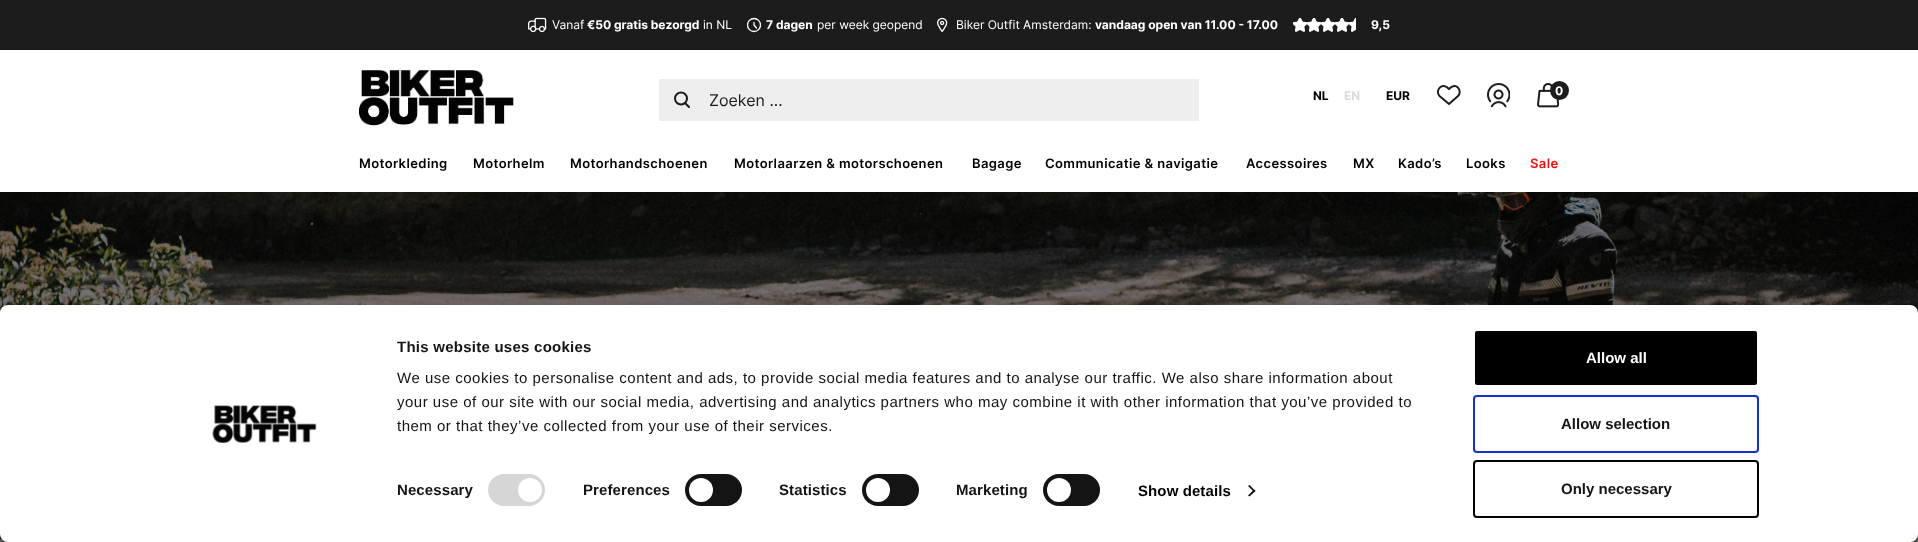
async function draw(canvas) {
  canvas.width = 1918
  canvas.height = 542
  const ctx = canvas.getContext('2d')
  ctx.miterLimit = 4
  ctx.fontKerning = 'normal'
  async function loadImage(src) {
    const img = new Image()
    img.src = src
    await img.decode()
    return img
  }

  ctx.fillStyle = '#fff'
  ctx.fillRect(0, 0, 1918, 542)
  ctx.fillStyle = '#1c1c1c'
  ctx.fillRect(0, 0, 1918, 50)
  ctx.drawImage(await loadImage('image0.png'), 528, 17, 19, 16)
  ctx.font = '12px Inter'
  ctx.fillStyle = '#fff'
  ctx.fillText('Vanaf', 552, 29)
  ctx.font = 'bold 12px Inter'
  ctx.fillText('€50 gratis bezorgd', 587, 29)
  ctx.font = '12px Inter'
  ctx.fillText('in NL', 703, 29)
  ctx.save()
  ctx.beginPath()
  ctx.rect(747, 12, 14, 26)
  ctx.clip()
  ctx.beginPath()
  ctx.arc(754, 25, 6.5, 0, 2 * Math.PI)
  ctx.strokeStyle = '#fff'
  ctx.lineWidth = 1.3
  ctx.stroke()
  ctx.restore()
  ctx.beginPath()
  ctx.moveTo(754, 22.5)
  ctx.lineTo(754, 25)
  ctx.lineTo(756.5, 28)
  ctx.strokeStyle = '#fff'
  ctx.lineWidth = 1.3
  ctx.lineCap = 'round'
  ctx.lineJoin = 'round'
  ctx.stroke()
  ctx.font = 'bold 12px Inter'
  ctx.fillText('7 dagen', 766, 29)
  ctx.font = '12px Inter'
  ctx.fillText('per week geopend', 817, 29)
  ctx.drawImage(await loadImage('image1.png'), 937, 17, 11, 16)
  ctx.fillText('Biker Outfit Amsterdam:', 956, 29)
  ctx.font = 'bold 12px Inter'
  ctx.fillText('vandaag open van 11.00 - 17.00', 1095, 29)
  ctx.drawImage(await loadImage('image2.png'), 1293, 18, 14, 14)
  ctx.drawImage(await loadImage('image2.png'), 1307, 18, 14, 14)
  ctx.drawImage(await loadImage('image2.png'), 1321, 18, 14, 14)
  ctx.drawImage(await loadImage('image2.png'), 1335, 18, 14, 14)
  ctx.drawImage(await loadImage('image3.png'), 1348, 18, 8, 14)
  ctx.fillText('9,5', 1371, 29)
  ctx.drawImage(await loadImage('image4.png'), 359, 70, 155, 56)
  ctx.fillStyle = '#eee'
  ctx.fillRect(659, 79, 540, 42)
  ctx.beginPath()
  ctx.arc(681, 98.5, 6, 0, 2 * Math.PI)
  ctx.strokeStyle = '#1c1c1c'
  ctx.lineWidth = 2
  ctx.stroke()
  ctx.beginPath()
  ctx.moveTo(689, 107)
  ctx.lineTo(685, 103)
  ctx.stroke()
  ctx.font = '16px Inter'
  ctx.fillStyle = '#1c1c1c'
  ctx.fillText('Zoeken ...', 709, 106)
  ctx.font = 'bold 12px Inter'
  ctx.fillStyle = '#000'
  ctx.fillText('NL', 1313, 100)
  ctx.fillStyle = '#dcdcdc'
  ctx.fillText('EN', 1344, 100)
  ctx.fillStyle = '#000'
  ctx.fillText('EUR', 1386, 100)
  ctx.beginPath()
  ctx.moveTo(1449, 104)
  ctx.lineTo(1439.5, 96)
  ctx.bezierCurveTo(1434.5, 91, 1442, 81, 1449, 89)
  ctx.bezierCurveTo(1456, 81, 1463, 91, 1458, 96)
  ctx.closePath()
  ctx.stroke()
  ctx.drawImage(await loadImage('image5.png'), 1487, 83, 23, 25)
  ctx.drawImage(await loadImage('image6.png'), 1537, 83, 22, 25)
  ctx.fillStyle = '#1c1c1c'
  ctx.beginPath()
  ctx.arc(1559.5, 90.5, 9.5, 0, 2 * Math.PI)
  ctx.fill()
  ctx.fillStyle = '#fff'
  ctx.fillText('0', 1555, 95)
  ctx.letterSpacing = '0.4px'
  ctx.font = '600 13px Inter'
  ctx.fillStyle = '#000'
  ctx.fillText('Motorkleding', 359, 168)
  ctx.fillText('Motorhelm', 473, 168)
  ctx.fillText('Motorhandschoenen', 570, 168)
  ctx.fillText('Motorlaarzen & motorschoenen', 734, 168)
  ctx.fillText('Bagage', 972, 168)
  ctx.fillText('Communicatie & navigatie', 1045, 168)
  ctx.fillText('Accessoires', 1246, 168)
  ctx.fillText('MX', 1353, 168)
  ctx.fillText('Kado’s', 1398, 168)
  ctx.fillText('Looks', 1466, 168)
  ctx.fillStyle = '#f00f0f'
  ctx.fillText('Sale', 1530, 168)
  ctx.fillStyle = '#000'
  ctx.fillRect(0, 192, 1918, 350)
  ctx.drawImage(await loadImage('image7.png'), 0, 192, 1918, 350)
  ctx.fillStyle = '#0000004d'
  ctx.filter = 'blur(35px)'
  ctx.beginPath()
  ctx.roundRect(0, 335, 1918, 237, 8)
  ctx.fill()
  ctx.filter = 'none'
  ctx.fillStyle = '#fff'
  ctx.beginPath()
  ctx.roundRect(0, 305, 1918, 237, 8)
  ctx.fill()
  ctx.drawImage(await loadImage('image8.png'), 212, 405, 105, 38)
  ctx.letterSpacing = '0.25px'
  ctx.font = 'bold 15px Liberation Sans'
  ctx.fillStyle = '#141414'
  ctx.fillText('This website uses cookies', 397, 352)
  ctx.letterSpacing = '0.5px'
  ctx.font = '15px Liberation Sans'
  ctx.fillText('We use cookies to personalise content and ads, to provide social media features and to analyse our traffic. We also share information about', 397, 383)
  ctx.fillText('your use of our site with our social media, advertising and analytics partners who may combine it with other information that you’ve provided to', 397, 407)
  ctx.fillText('them or that they’ve collected from your use of their services.', 397, 431)
  ctx.letterSpacing = '0.1px'
  ctx.font = 'bold 15px Liberation Sans'
  ctx.fillText('Necessary', 397, 495)
  ctx.fillStyle = '#d6d6d6'
  ctx.beginPath()
  ctx.roundRect(488, 474, 57, 32, 16)
  ctx.fill()
  ctx.fillStyle = '#fff'
  ctx.beginPath()
  ctx.arc(530, 490, 12, 0, 2 * Math.PI)
  ctx.fill()
  ctx.fillStyle = '#141414'
  ctx.fillText('Preferences', 583, 495)
  ctx.beginPath()
  ctx.roundRect(685, 474, 57, 32, 16)
  ctx.fill()
  ctx.fillStyle = '#fff'
  ctx.beginPath()
  ctx.arc(701, 490, 12, 0, 2 * Math.PI)
  ctx.fill()
  ctx.fillStyle = '#141414'
  ctx.fillText('Statistics', 779, 495)
  ctx.beginPath()
  ctx.roundRect(862, 474, 57, 32, 16)
  ctx.fill()
  ctx.fillStyle = '#fff'
  ctx.beginPath()
  ctx.arc(878, 490, 12, 0, 2 * Math.PI)
  ctx.fill()
  ctx.fillStyle = '#141414'
  ctx.fillText('Marketing', 956, 495)
  ctx.beginPath()
  ctx.roundRect(1043, 474, 57, 32, 16)
  ctx.fill()
  ctx.fillStyle = '#fff'
  ctx.beginPath()
  ctx.arc(1059, 490, 12, 0, 2 * Math.PI)
  ctx.fill()
  ctx.fillStyle = '#000'
  ctx.fillText('Show details', 1138, 496)
  ctx.fillStyle = '#141414'
  ctx.beginPath()
  ctx.moveTo(1249.5, 485)
  ctx.lineTo(1255.5, 491)
  ctx.lineTo(1254, 492)
  ctx.lineTo(1248, 486)
  ctx.closePath()
  ctx.fill()
  ctx.beginPath()
  ctx.moveTo(1254, 489.5)
  ctx.lineTo(1255.5, 491)
  ctx.lineTo(1249.5, 496.5)
  ctx.lineTo(1248, 495.5)
  ctx.closePath()
  ctx.fill()
  ctx.fillStyle = '#000'
  ctx.beginPath()
  ctx.roundRect(1474, 330, 284, 56, 3)
  ctx.fill()
  ctx.strokeStyle = '#fff'
  ctx.lineJoin = 'miter'
  ctx.stroke()
  ctx.letterSpacing = '0px'
  ctx.fillStyle = '#fff'
  ctx.fillText('Allow all', 1586, 363)
  ctx.beginPath()
  ctx.roundRect(1474, 396, 284, 56, 3)
  ctx.strokeStyle = '#1032cf'
  ctx.stroke()
  ctx.fillStyle = '#141414'
  ctx.fillText('Allow selection', 1561, 429)
  ctx.beginPath()
  ctx.roundRect(1474, 461, 284, 56, 3)
  ctx.strokeStyle = '#010101'
  ctx.stroke()
  ctx.fillText('Only necessary', 1561, 494)
}

draw(document.querySelector('canvas'))
